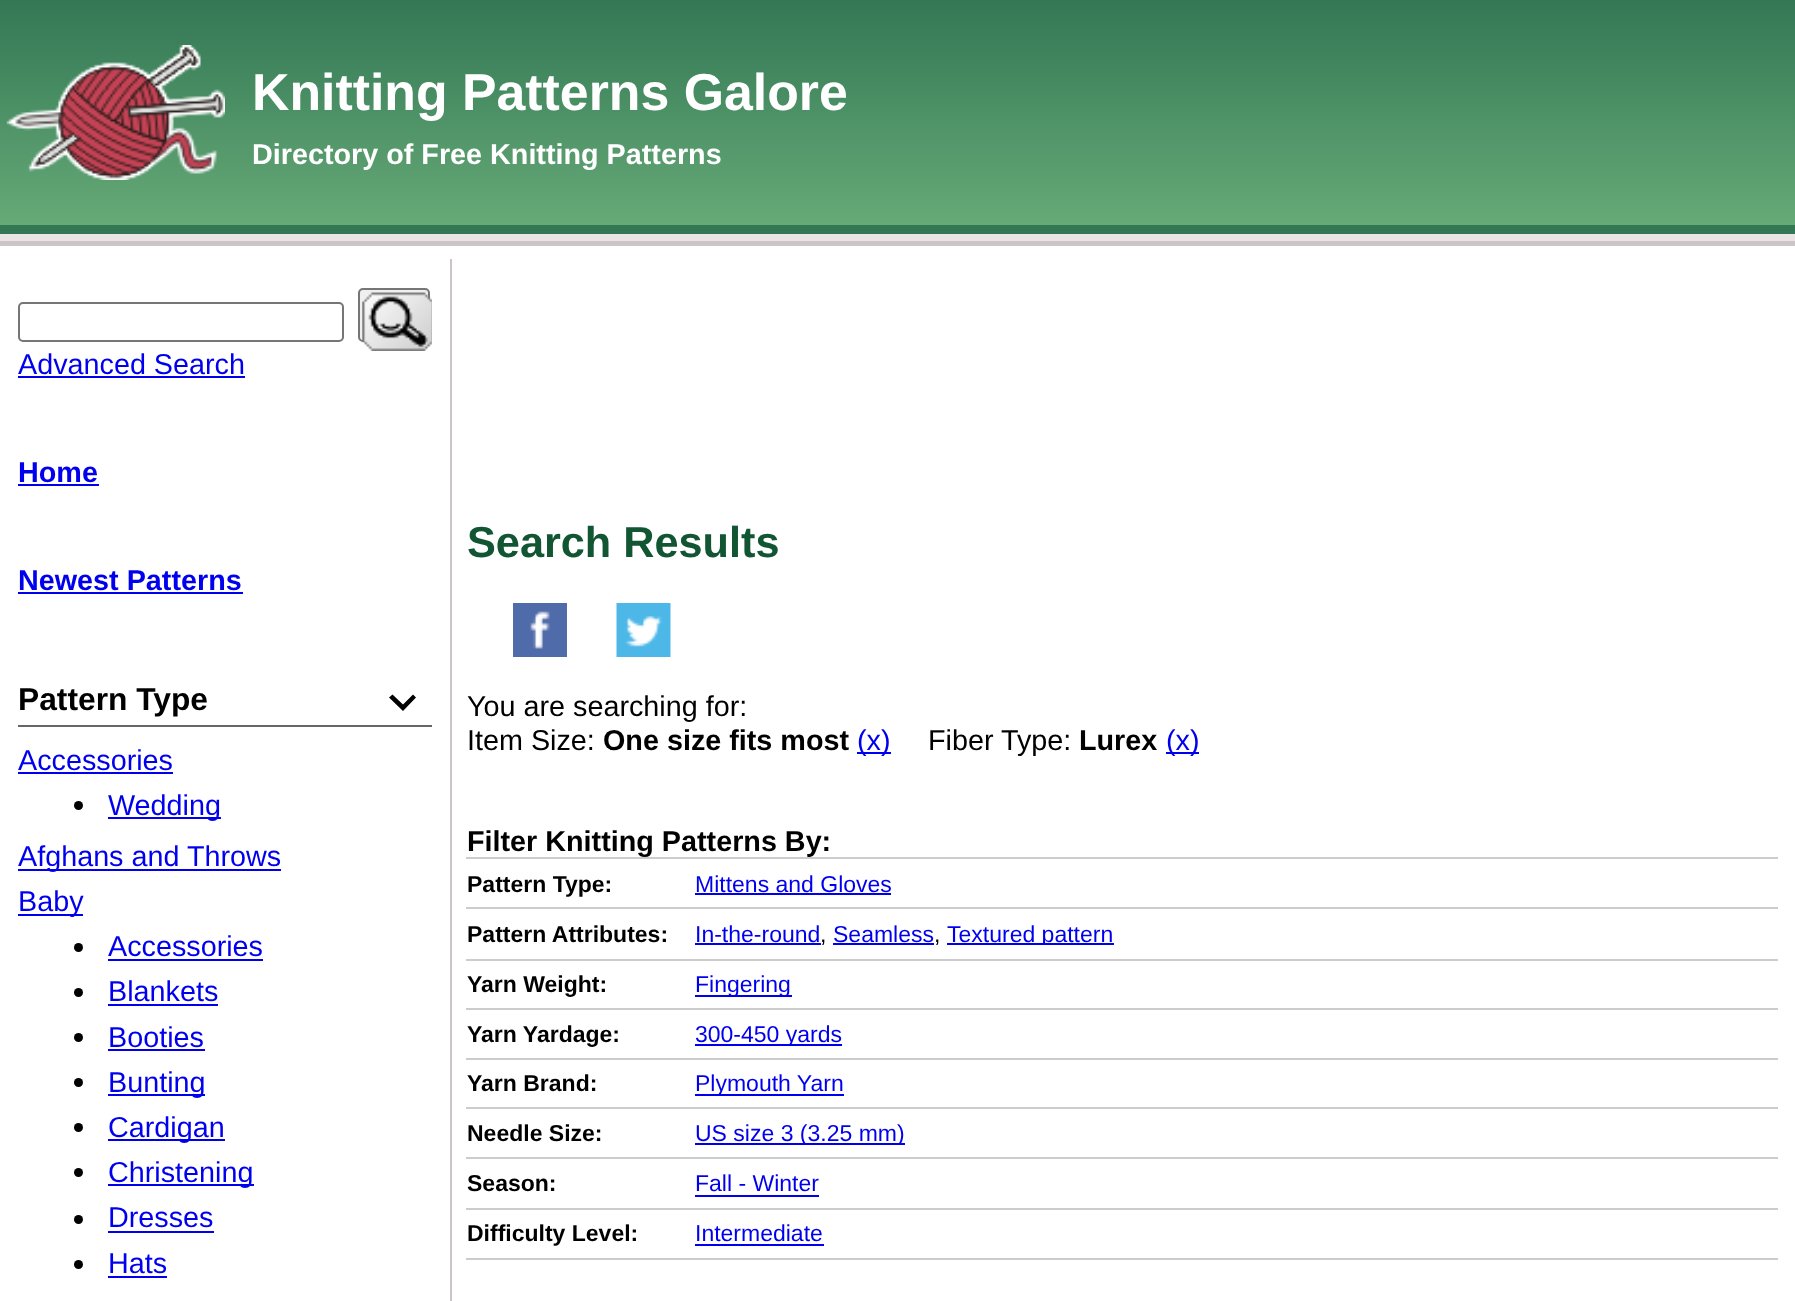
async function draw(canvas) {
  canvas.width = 1795
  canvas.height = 1301
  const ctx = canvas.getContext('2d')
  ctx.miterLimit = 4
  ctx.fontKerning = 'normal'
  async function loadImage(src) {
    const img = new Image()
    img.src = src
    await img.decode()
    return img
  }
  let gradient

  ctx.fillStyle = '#fff'
  ctx.fillRect(0, 0, 1795, 1301)
  gradient = ctx.createLinearGradient(898, 0, 898, 225)
  gradient.addColorStop(0, '#375')
  gradient.addColorStop(1, '#6a7')
  ctx.fillStyle = gradient
  ctx.fillRect(0, 0, 1795, 225)
  ctx.drawImage(await loadImage('image0.png'), 6, 45, 219, 135)
  ctx.font = 'bold 51.8px Liberation Sans'
  ctx.fillStyle = '#fff'
  ctx.fillText('Knitting Patterns Galore', 252, 110)
  ctx.font = 'bold 28.75px Liberation Sans'
  ctx.fillText('Directory of Free Knitting Patterns', 252, 164)
  ctx.fillStyle = '#ece5e8'
  ctx.fillRect(0, 234, 1795, 7)
  ctx.fillStyle = '#375'
  ctx.fillRect(0, 225, 1795, 9)
  ctx.fillStyle = '#ccc5c8'
  ctx.fillRect(0, 241, 1795, 5)
  ctx.fillRect(450, 259, 2, 1042)
  ctx.beginPath()
  ctx.roundRect(19, 303, 324, 38, 4)
  ctx.strokeStyle = '#767676'
  ctx.lineWidth = 2
  ctx.stroke()
  ctx.fillStyle = '#efefef'
  ctx.beginPath()
  ctx.roundRect(359, 289, 70, 52, 4)
  ctx.fill()
  ctx.stroke()
  ctx.drawImage(await loadImage('image1.png'), 362, 292, 70, 59)
  ctx.font = '28.75px Liberation Sans'
  ctx.fillStyle = '#00e'
  ctx.fillText('Advanced Search', 18, 374)
  ctx.fillRect(18, 376, 227, 2)
  ctx.font = 'bold 28.75px Liberation Sans'
  ctx.fillText('Home', 18, 482)
  ctx.fillRect(18, 484, 81, 2)
  ctx.fillText('Newest Patterns', 18, 590)
  ctx.fillRect(18, 592, 225, 2)
  ctx.fillStyle = '#000'
  ctx.beginPath()
  ctx.moveTo(413, 694.5)
  ctx.lineTo(403, 704.5)
  ctx.lineTo(392.5, 694.5)
  ctx.lineTo(389, 697.5)
  ctx.lineTo(403, 711)
  ctx.lineTo(416, 697.5)
  ctx.closePath()
  ctx.fill()
  ctx.fillStyle = '#666'
  ctx.fillRect(18, 725, 414, 2)
  ctx.font = 'bold 31.75px Liberation Sans'
  ctx.fillStyle = '#000'
  ctx.fillText('Pattern Type', 18, 710)
  ctx.font = '28.75px Liberation Sans'
  ctx.fillStyle = '#00e'
  ctx.fillText('Accessories', 18, 770)
  ctx.fillRect(18, 772, 155, 2)
  ctx.fillStyle = '#000'
  ctx.beginPath()
  ctx.arc(78.5, 805.5, 4.5, 0, 2 * Math.PI)
  ctx.fill()
  ctx.fillStyle = '#00e'
  ctx.fillRect(108, 817, 113, 2)
  ctx.fillText('Wedding', 108, 815)
  ctx.fillRect(18, 869, 263, 2)
  ctx.fillText('Afghans and Throws', 18, 866)
  ctx.fillRect(18, 914, 65, 2)
  ctx.fillText('Baby', 18, 911)
  ctx.fillStyle = '#000'
  ctx.beginPath()
  ctx.arc(78.5, 947.5, 4.5, 0, 2 * Math.PI)
  ctx.fill()
  ctx.fillStyle = '#00e'
  ctx.fillText('Accessories', 108, 956)
  ctx.fillRect(108, 959, 155, 2)
  ctx.fillStyle = '#000'
  ctx.beginPath()
  ctx.arc(78.5, 992.5, 4.5, 0, 2 * Math.PI)
  ctx.fill()
  ctx.fillStyle = '#00e'
  ctx.fillText('Blankets', 108, 1001)
  ctx.fillRect(108, 1004, 110, 2)
  ctx.fillStyle = '#000'
  ctx.beginPath()
  ctx.arc(78.5, 1037.5, 4.5, 0, 2 * Math.PI)
  ctx.fill()
  ctx.fillStyle = '#00e'
  ctx.fillText('Booties', 108, 1047)
  ctx.fillRect(108, 1049, 97, 2)
  ctx.fillStyle = '#000'
  ctx.beginPath()
  ctx.arc(78.5, 1082.5, 4.5, 0, 2 * Math.PI)
  ctx.fill()
  ctx.fillStyle = '#00e'
  ctx.fillRect(108, 1094, 97, 2)
  ctx.fillText('Bunting', 108, 1092)
  ctx.fillStyle = '#000'
  ctx.beginPath()
  ctx.arc(78.5, 1127.5, 4.5, 0, 2 * Math.PI)
  ctx.fill()
  ctx.fillStyle = '#00e'
  ctx.fillRect(108, 1139, 117, 2)
  ctx.fillText('Cardigan', 108, 1137)
  ctx.fillStyle = '#000'
  ctx.beginPath()
  ctx.arc(78.5, 1172.5, 4.5, 0, 2 * Math.PI)
  ctx.fill()
  ctx.fillStyle = '#00e'
  ctx.fillRect(108, 1184, 146, 2)
  ctx.fillText('Christening', 108, 1182)
  ctx.fillStyle = '#000'
  ctx.beginPath()
  ctx.arc(78.5, 1219.5, 4.5, 0, 2 * Math.PI)
  ctx.fill()
  ctx.fillStyle = '#00e'
  ctx.fillText('Dresses', 108, 1227)
  ctx.fillRect(108, 1231, 106, 2)
  ctx.fillStyle = '#000'
  ctx.beginPath()
  ctx.arc(78.5, 1264.5, 4.5, 0, 2 * Math.PI)
  ctx.fill()
  ctx.fillStyle = '#00e'
  ctx.fillText('Hats', 108, 1273)
  ctx.fillRect(108, 1276, 59, 2)
  ctx.font = 'bold 43.25px Liberation Sans'
  ctx.fillStyle = '#153'
  ctx.fillText('Search Results', 467, 557)
  ctx.drawImage(await loadImage('image2.png'), 513, 603, 54, 54)
  ctx.drawImage(await loadImage('image3.png'), 616, 603, 55, 54)
  ctx.font = '28.75px Liberation Sans'
  ctx.fillStyle = '#000'
  ctx.fillText('You are searching for:', 467, 716)
  ctx.fillText('Item Size:', 467, 750)
  ctx.font = 'bold 28.75px Liberation Sans'
  ctx.fillText('One size fits most', 603, 750)
  ctx.fillStyle = '#00e'
  ctx.fillRect(857, 752, 34, 2)
  ctx.font = '28.75px Liberation Sans'
  ctx.fillText('(x)', 857, 750)
  ctx.fillStyle = '#000'
  ctx.fillText('Fiber Type:', 928, 750)
  ctx.font = 'bold 28.75px Liberation Sans'
  ctx.fillText('Lurex', 1079, 750)
  ctx.fillStyle = '#00e'
  ctx.fillRect(1166, 752, 33, 2)
  ctx.font = '28.75px Liberation Sans'
  ctx.fillText('(x)', 1166, 750)
  ctx.fillStyle = '#ccc'
  ctx.fillRect(466, 857, 1312, 2)
  ctx.font = 'bold 28.75px Liberation Sans'
  ctx.fillStyle = '#000'
  ctx.fillText('Filter Knitting Patterns By:', 467, 851)
  ctx.fillStyle = '#ccc'
  ctx.fillRect(466, 907, 1312, 2)
  ctx.font = 'bold 23px Liberation Sans'
  ctx.fillStyle = '#000'
  ctx.fillText('Pattern Type:', 467, 892)
  ctx.font = '23px Liberation Sans'
  ctx.fillStyle = '#00e'
  ctx.fillText('Mittens and Gloves', 695, 892)
  ctx.fillRect(695, 893, 196, 2)
  ctx.fillStyle = '#ccc'
  ctx.fillRect(466, 959, 1312, 2)
  ctx.font = 'bold 23px Liberation Sans'
  ctx.fillStyle = '#000'
  ctx.fillText('Pattern Attributes:', 467, 942)
  ctx.font = '23px Liberation Sans'
  ctx.fillStyle = '#00e'
  ctx.fillText('In-the-round', 695, 942)
  ctx.fillRect(695, 943, 126, 2)
  ctx.fillStyle = '#000'
  ctx.fillText(',', 820, 942)
  ctx.fillStyle = '#00e'
  ctx.fillText('Seamless', 833, 942)
  ctx.fillRect(833, 943, 101, 2)
  ctx.fillStyle = '#000'
  ctx.fillText(',', 934, 942)
  ctx.fillStyle = '#00e'
  ctx.fillRect(947, 943, 167, 2)
  ctx.save()
  ctx.beginPath()
  ctx.rect(695, 920, 1083, 25)
  ctx.clip()
  ctx.fillText('Textured pattern', 947, 942)
  ctx.restore()
  ctx.fillStyle = '#ccc'
  ctx.fillRect(466, 1008, 1312, 2)
  ctx.font = 'bold 23px Liberation Sans'
  ctx.fillStyle = '#000'
  ctx.fillText('Yarn Weight:', 467, 992)
  ctx.fillStyle = '#00e'
  ctx.fillRect(695, 995, 97, 2)
  ctx.font = '23px Liberation Sans'
  ctx.fillText('Fingering', 695, 992)
  ctx.fillStyle = '#ccc'
  ctx.fillRect(466, 1058, 1312, 2)
  ctx.font = 'bold 23px Liberation Sans'
  ctx.fillStyle = '#000'
  ctx.fillText('Yarn Yardage:', 467, 1042)
  ctx.fillStyle = '#00e'
  ctx.fillRect(695, 1044, 147, 2)
  ctx.save()
  ctx.beginPath()
  ctx.rect(695, 1022, 1083, 24)
  ctx.clip()
  ctx.font = '23px Liberation Sans'
  ctx.fillText('300-450 yards', 695, 1042)
  ctx.restore()
  ctx.fillStyle = '#ccc'
  ctx.fillRect(466, 1107, 1312, 2)
  ctx.fillStyle = '#000'
  ctx.fillText('Yarn Brand:', 467, 1091)
  ctx.fillStyle = '#00e'
  ctx.fillRect(695, 1094, 149, 2)
  ctx.font = '23px Liberation Sans'
  ctx.fillText('Plymouth Yarn', 695, 1091)
  ctx.fillStyle = '#ccc'
  ctx.fillRect(466, 1157, 1312, 2)
  ctx.font = 'bold 23px Liberation Sans'
  ctx.fillStyle = '#000'
  ctx.fillText('Needle Size:', 467, 1141)
  ctx.fillStyle = '#00e'
  ctx.fillRect(695, 1143, 210, 2)
  ctx.save()
  ctx.beginPath()
  ctx.rect(695, 1121, 1083, 24)
  ctx.clip()
  ctx.font = '23px Liberation Sans'
  ctx.fillText('US size 3 (3.25 mm)', 695, 1141)
  ctx.restore()
  ctx.fillStyle = '#ccc'
  ctx.fillRect(466, 1208, 1312, 2)
  ctx.fillStyle = '#000'
  ctx.fillText('Season:', 467, 1191)
  ctx.font = '23px Liberation Sans'
  ctx.fillStyle = '#00e'
  ctx.fillText('Fall - Winter', 695, 1191)
  ctx.fillRect(695, 1195, 124, 2)
  ctx.fillStyle = '#ccc'
  ctx.fillRect(466, 1258, 1312, 2)
  ctx.font = 'bold 23px Liberation Sans'
  ctx.fillStyle = '#000'
  ctx.fillText('Difficulty Level:', 467, 1241)
  ctx.font = '23px Liberation Sans'
  ctx.fillStyle = '#00e'
  ctx.fillText('Intermediate', 695, 1241)
  ctx.fillRect(695, 1244, 129, 2)
}

draw(document.querySelector('canvas'))
